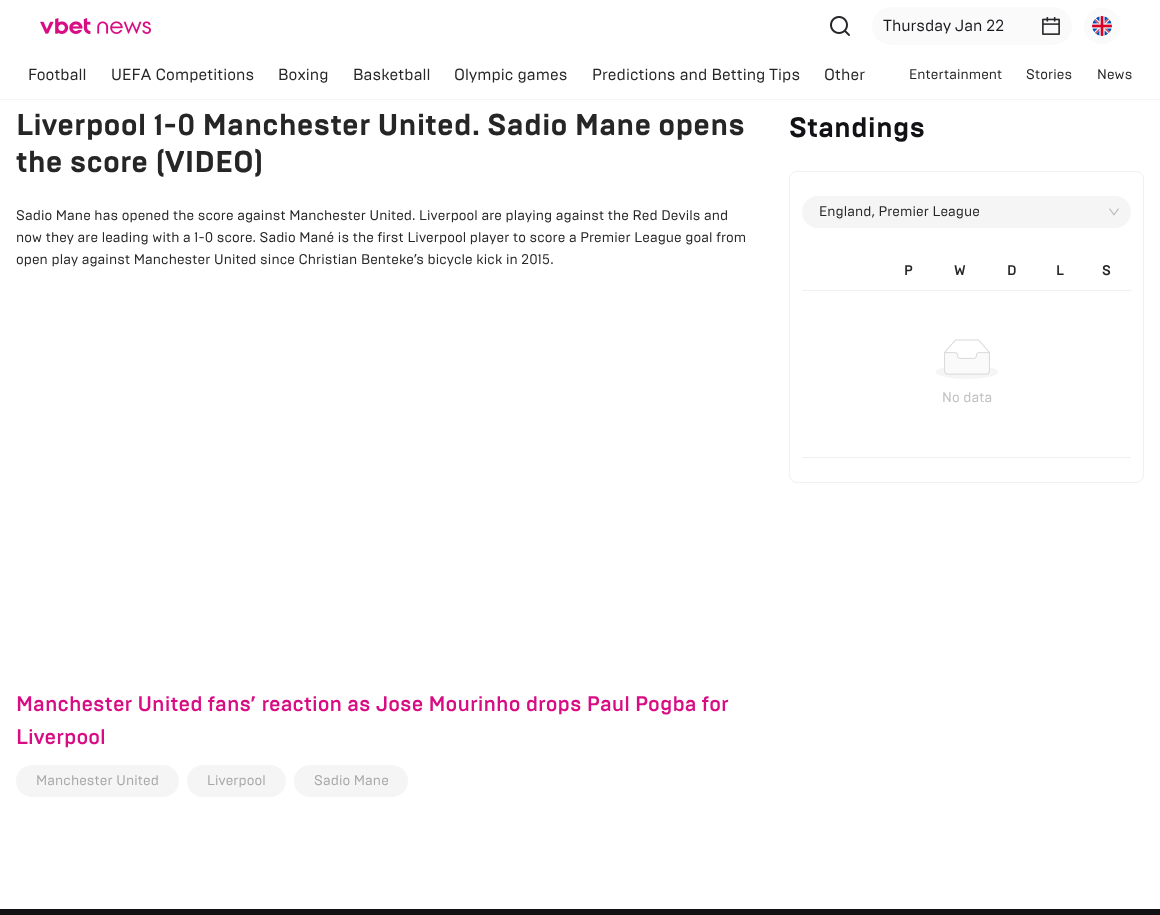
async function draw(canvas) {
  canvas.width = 1160
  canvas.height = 915
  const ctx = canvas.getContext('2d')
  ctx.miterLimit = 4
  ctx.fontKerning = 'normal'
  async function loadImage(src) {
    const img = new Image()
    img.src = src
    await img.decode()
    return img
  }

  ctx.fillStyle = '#fff'
  ctx.fillRect(0, 0, 1160, 915)
  ctx.drawImage(await loadImage('image0.png'), 40, 18, 111, 16)
  ctx.drawImage(await loadImage('image1.png'), 830, 16, 20, 20)
  ctx.fillStyle = '#fafafa'
  ctx.beginPath()
  ctx.roundRect(872, 7, 200, 38, 19)
  ctx.fill()
  ctx.font = '16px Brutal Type'
  ctx.fillStyle = '#1a191f'
  ctx.fillText('Thursday Jan 22', 883, 31)
  ctx.drawImage(await loadImage('image2.png'), 1042, 17, 18, 18)
  ctx.fillStyle = '#fafafa'
  ctx.beginPath()
  ctx.arc(1102, 26, 18, 0, 2 * Math.PI)
  ctx.fill()
  ctx.drawImage(await loadImage('image3.png'), 1092, 16, 20, 20)
  ctx.fillStyle = '#f6f5f6'
  ctx.fillRect(0, 99, 1160, 1)
  ctx.letterSpacing = '0.1px'
  ctx.fillStyle = '#262626'
  ctx.fillText('Football', 28, 80)
  ctx.fillText('UEFA Competitions', 111, 80)
  ctx.fillText('Boxing', 278, 80)
  ctx.fillText('Basketball', 353, 80)
  ctx.fillText('Olympic games', 454, 80)
  ctx.fillText('Predictions and Betting Tips', 592, 80)
  ctx.fillText('Other', 824, 80)
  ctx.font = '14px Brutal Type'
  ctx.fillText('Entertainment', 909, 79)
  ctx.fillText('Stories', 1026, 79)
  ctx.fillText('News', 1097, 79)
  ctx.font = 'bold 30px Brutal Type'
  ctx.fillText('Liverpool 1-0 Manchester United. Sadio Mane opens', 16, 135)
  ctx.fillText('the score (VIDEO)', 16, 172)
  ctx.font = '14px Brutal Type'
  ctx.fillText('Sadio Mane has opened the score against Manchester United. Liverpool are playing against the Red Devils and', 16, 220)
  ctx.fillText('now they are leading with a 1-0 score. Sadio Mané is the first Liverpool player to score a Premier League goal from', 16, 242)
  ctx.fillText('open play against Manchester United since Christian Benteke’s bicycle kick in 2015.', 16, 264)
  ctx.font = '500 21px Brutal Type'
  ctx.fillStyle = '#d80d83'
  ctx.fillText('Manchester United fans’ reaction as Jose Mourinho drops Paul Pogba for', 16, 711)
  ctx.fillText('Liverpool', 16, 744)
  ctx.fillStyle = '#f6f5f6'
  ctx.beginPath()
  ctx.roundRect(16, 765, 163, 32, 16)
  ctx.fill()
  ctx.font = '14px Brutal Type'
  ctx.fillStyle = '#a8a8a8'
  ctx.fillText('Manchester United', 36, 785)
  ctx.fillStyle = '#f6f5f6'
  ctx.beginPath()
  ctx.roundRect(187, 765, 99, 32, 16)
  ctx.fill()
  ctx.fillStyle = '#a8a8a8'
  ctx.fillText('Liverpool', 207, 785)
  ctx.fillStyle = '#f6f5f6'
  ctx.beginPath()
  ctx.roundRect(294, 765, 114, 32, 16)
  ctx.fill()
  ctx.fillStyle = '#a8a8a8'
  ctx.fillText('Sadio Mane', 314, 785)
  ctx.font = 'bold 28px Brutal Type'
  ctx.fillStyle = '#121116'
  ctx.fillText('Standings', 789, 137)
  ctx.beginPath()
  ctx.roundRect(789.5, 171.5, 354, 311, 7.5)
  ctx.strokeStyle = '#f0f0f0'
  ctx.stroke()
  ctx.fillStyle = '#f6f5f6'
  ctx.beginPath()
  ctx.roundRect(802, 196, 329, 32, 16)
  ctx.fill()
  ctx.font = '14px Brutal Type'
  ctx.fillStyle = '#262626'
  ctx.fillText('England, Premier League', 819, 216)
  ctx.drawImage(await loadImage('image4.png'), 1109, 208, 10, 8)
  ctx.font = '500 14px Brutal Type'
  ctx.fillText('P', 904, 275)
  ctx.fillText('W', 954, 275)
  ctx.fillText('D', 1007, 275)
  ctx.fillText('L', 1056, 275)
  ctx.fillText('S', 1102, 275)
  ctx.fillStyle = '#f0f0f0'
  ctx.fillRect(802, 290, 329, 1)
  ctx.fillRect(802, 457, 329, 1)
  ctx.drawImage(await loadImage('image5.png'), 936, 339, 62, 40)
  ctx.font = '14px Brutal Type'
  ctx.fillStyle = '#bfbfbf'
  ctx.fillText('No data', 942, 402)
  ctx.fillStyle = '#121116'
  ctx.fillRect(0, 909, 1160, 6)
}

draw(document.querySelector('canvas'))
